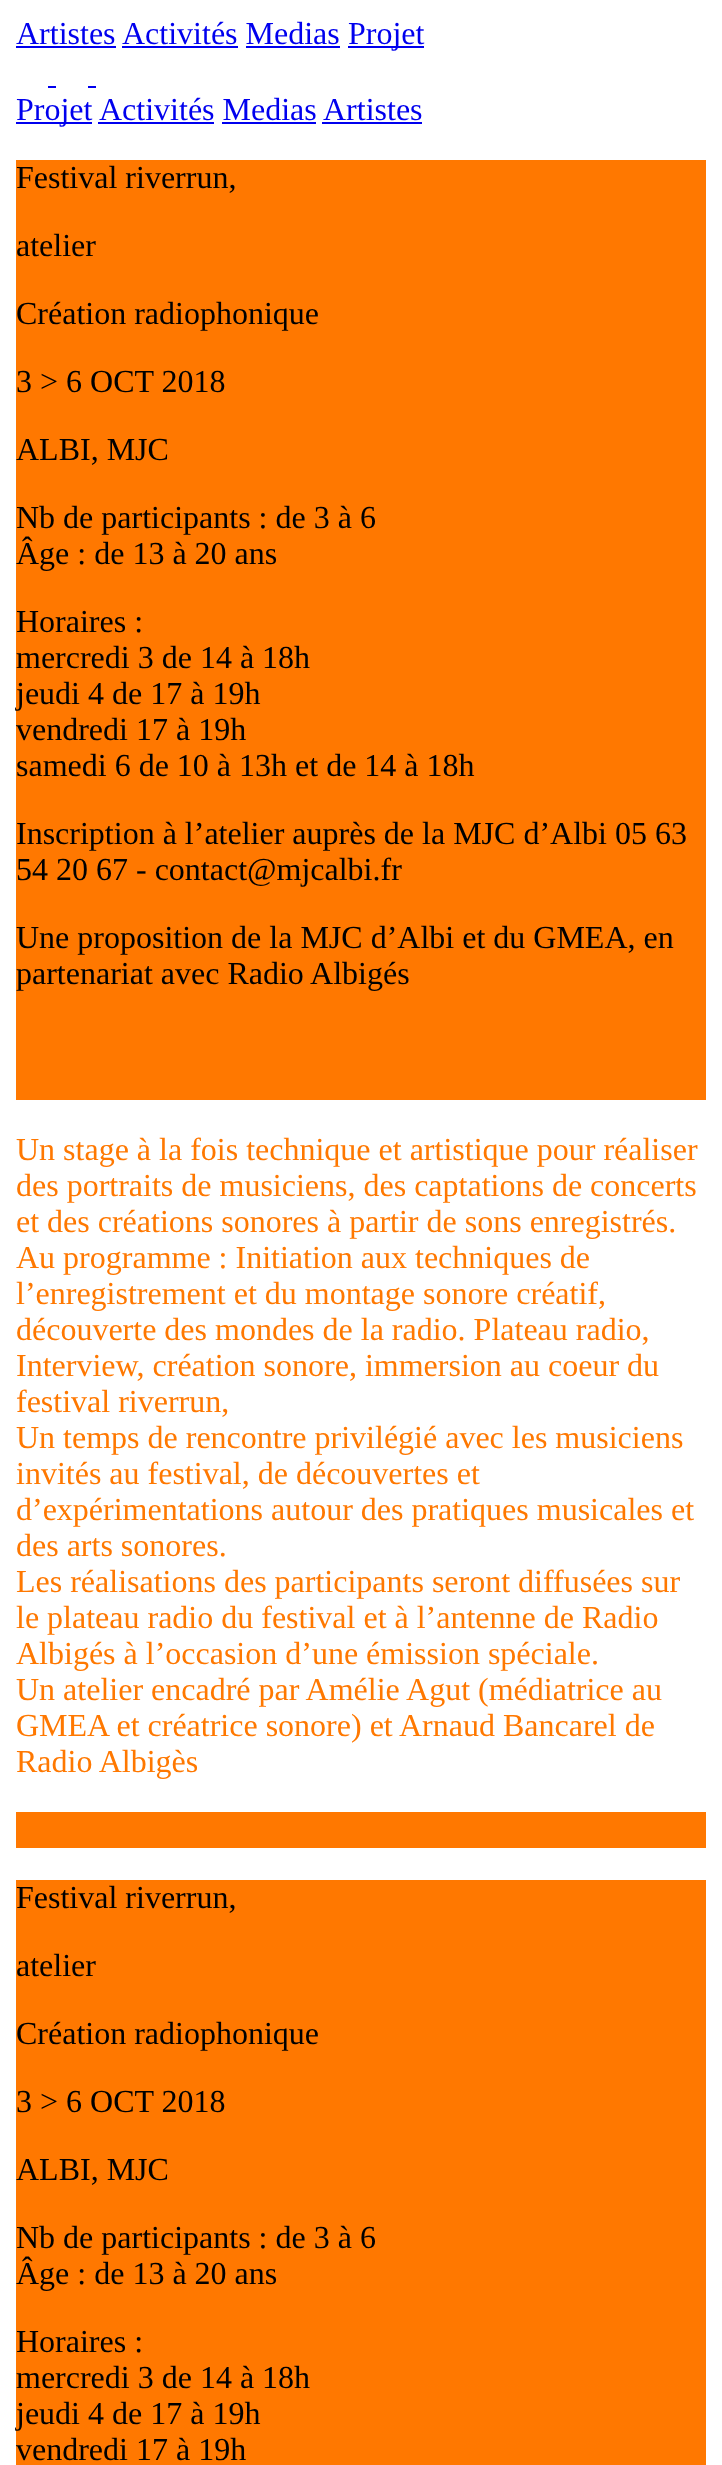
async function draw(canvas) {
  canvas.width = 722
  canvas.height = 2465
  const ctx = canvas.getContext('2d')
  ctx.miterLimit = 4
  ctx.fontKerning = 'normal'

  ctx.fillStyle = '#fff'
  ctx.fillRect(0, 0, 722, 2465)
  ctx.font = '32px Liberation Serif'
  ctx.fillStyle = '#00e'
  ctx.fillText('Artistes', 16, 44)
  ctx.fillRect(16, 46, 100, 2)
  ctx.fillText('Activités Medias', 122, 44)
  ctx.fillRect(122, 46, 116, 2)
  ctx.fillRect(348, 46, 76, 2)
  ctx.fillText('Projet', 348, 44)
  ctx.fillRect(246, 46, 94, 2)
  ctx.fillRect(48, 86, 8, 2)
  ctx.fillRect(88, 86, 8, 2)
  ctx.fillRect(16, 122, 76, 2)
  ctx.fillText('Projet', 16, 120)
  ctx.fillText('Activités Medias', 99, 120)
  ctx.fillRect(98, 122, 116, 2)
  ctx.fillText('Artistes', 323, 120)
  ctx.fillRect(322, 122, 100, 2)
  ctx.fillRect(222, 122, 94, 2)
  ctx.fillStyle = '#ff7800'
  ctx.fillRect(16, 160, 690, 940)
  ctx.fillStyle = '#000'
  ctx.fillText('Festival riverrun,', 16, 188)
  ctx.fillText('atelier', 16, 256)
  ctx.fillText('Création radiophonique', 16, 324)
  ctx.fillText('3 > 6 OCT 2018', 16, 392)
  ctx.fillText('ALBI, MJC', 16, 460)
  ctx.fillText('Nb de participants : de 3 à 6', 16, 528)
  ctx.fillText('Âge : de 13 à 20 ans', 16, 564)
  ctx.fillText('Horaires :', 16, 632)
  ctx.fillText('mercredi 3 de 14 à 18h', 16, 668)
  ctx.fillText('jeudi 4 de 17 à 19h', 16, 704)
  ctx.fillText('vendredi 17 à 19h', 16, 740)
  ctx.fillText('samedi 6 de 10 à 13h et de 14 à 18h', 16, 776)
  ctx.fillText('Inscription à l’atelier auprès de la MJC d’Albi 05 63', 16, 844)
  ctx.fillText('54 20 67 - contact@mjcalbi.fr', 16, 880)
  ctx.fillText('Une proposition de la MJC d’Albi et du GMEA, en', 16, 948)
  ctx.fillText('partenariat avec Radio Albigés', 16, 984)
  ctx.fillStyle = '#ff7800'
  ctx.fillText('Un stage à la fois technique et artistique pour réaliser', 16, 1160)
  ctx.fillText('des portraits de musiciens, des captations de concerts', 16, 1196)
  ctx.fillText('et des créations sonores à partir de sons enregistrés.', 16, 1232)
  ctx.fillText('Au programme : Initiation aux techniques de', 16, 1268)
  ctx.fillText('l’enregistrement et du montage sonore créatif,', 16, 1304)
  ctx.fillText('découverte des mondes de la radio. Plateau radio,', 16, 1340)
  ctx.fillText('Interview, création sonore, immersion au coeur du', 16, 1376)
  ctx.fillText('festival riverrun,', 16, 1412)
  ctx.fillText('Un temps de rencontre privilégié avec les musiciens', 16, 1448)
  ctx.fillText('invités au festival, de découvertes et', 16, 1484)
  ctx.fillText('d’expérimentations autour des pratiques musicales et', 16, 1520)
  ctx.fillText('des arts sonores.', 16, 1556)
  ctx.fillText('Les réalisations des participants seront diffusées sur', 16, 1592)
  ctx.fillText('le plateau radio du festival et à l’antenne de Radio', 16, 1628)
  ctx.fillText('Albigés à l’occasion d’une émission spéciale.', 16, 1664)
  ctx.fillText('Un atelier encadré par Amélie Agut (médiatrice au', 16, 1700)
  ctx.fillText('GMEA et créatrice sonore) et Arnaud Bancarel de', 16, 1736)
  ctx.fillText('Radio Albigès', 16, 1772)
  ctx.fillRect(16, 1812, 690, 36)
  ctx.fillRect(16, 1880, 690, 585)
  ctx.fillStyle = '#000'
  ctx.fillText('Festival riverrun,', 16, 1908)
  ctx.fillText('atelier', 16, 1976)
  ctx.fillText('Création radiophonique', 16, 2044)
  ctx.fillText('3 > 6 OCT 2018', 16, 2112)
  ctx.fillText('ALBI, MJC', 16, 2180)
  ctx.fillText('Nb de participants : de 3 à 6', 16, 2248)
  ctx.fillText('Âge : de 13 à 20 ans', 16, 2284)
  ctx.fillText('Horaires :', 16, 2352)
  ctx.fillText('mercredi 3 de 14 à 18h', 16, 2388)
  ctx.fillText('jeudi 4 de 17 à 19h', 16, 2424)
  ctx.fillText('vendredi 17 à 19h', 16, 2460)
}

draw(document.querySelector('canvas'))
